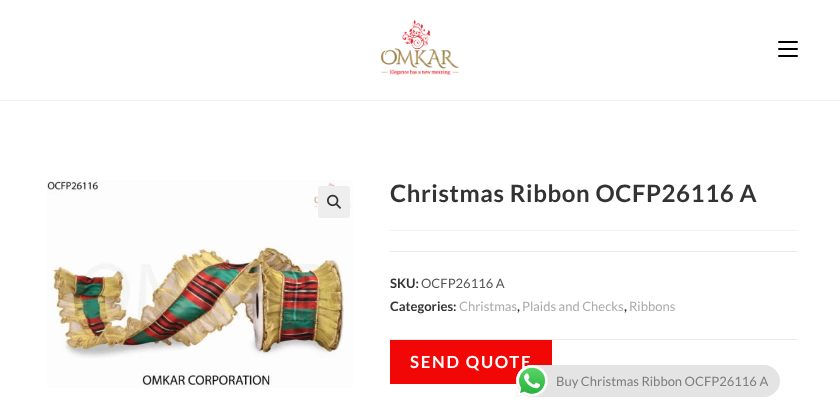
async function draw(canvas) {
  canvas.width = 840
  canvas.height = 412
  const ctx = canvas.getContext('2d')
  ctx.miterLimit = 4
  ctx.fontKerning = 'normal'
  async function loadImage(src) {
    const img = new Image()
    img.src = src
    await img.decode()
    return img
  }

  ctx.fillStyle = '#fff'
  ctx.fillRect(0, 0, 840, 412)
  ctx.fillStyle = '#f1f1f1'
  ctx.fillRect(0, 100, 840, 1)
  ctx.drawImage(await loadImage('image0.png'), 381, 20, 78, 55)
  ctx.fillStyle = '#000'
  ctx.beginPath()
  ctx.roundRect(778, 55, 20, 2, 1)
  ctx.fill()
  ctx.beginPath()
  ctx.roundRect(778, 41, 20, 2, 1)
  ctx.fill()
  ctx.beginPath()
  ctx.roundRect(778, 48, 20, 2, 1)
  ctx.fill()
  ctx.drawImage(await loadImage('image1.png'), 47, 180, 306, 208)
  ctx.fillStyle = '#eee'
  ctx.beginPath()
  ctx.roundRect(318, 186, 32, 32, 3)
  ctx.fill()
  ctx.drawImage(await loadImage('image2.png'), 327, 194, 14, 15)
  ctx.fillStyle = '#f1f1f1'
  ctx.fillRect(390, 230, 408, 1)
  ctx.letterSpacing = '0.6px'
  ctx.font = 'bold 24px Lato'
  ctx.fillStyle = '#333'
  ctx.fillText('Christmas Ribbon OCFP26116 A', 390, 202)
  ctx.fillStyle = '#eaeaea'
  ctx.fillRect(390, 251, 408, 1)
  ctx.fillRect(390, 339, 408, 1)
  ctx.letterSpacing = '0px'
  ctx.font = 'bold 13px Lato'
  ctx.fillStyle = '#333'
  ctx.fillText('SKU:', 390, 288)
  ctx.font = '13px Lato'
  ctx.fillStyle = '#555'
  ctx.fillText('OCFP26116 A', 421, 288)
  ctx.font = 'bold 13px Lato'
  ctx.fillStyle = '#333'
  ctx.fillText('Categories:', 390, 311)
  ctx.font = '13px Lato'
  ctx.fillStyle = '#ababab'
  ctx.fillText('Christmas', 459, 311)
  ctx.font = 'bold 13px Lato'
  ctx.fillStyle = '#333'
  ctx.fillText(',', 517, 311)
  ctx.font = '13px Lato'
  ctx.fillStyle = '#ababab'
  ctx.fillText('Plaids and Checks', 522, 311)
  ctx.font = 'bold 13px Lato'
  ctx.fillStyle = '#333'
  ctx.fillText(',', 624, 311)
  ctx.font = '13px Lato'
  ctx.fillStyle = '#ababab'
  ctx.fillText('Ribbons', 629, 311)
  ctx.fillStyle = '#f20707'
  ctx.fillRect(390, 340, 162, 44)
  ctx.letterSpacing = '1.75px'
  ctx.font = 'bold 16.75px Lato'
  ctx.fillStyle = '#fff'
  ctx.fillText('SEND QUOTE', 410, 368)
  ctx.fillStyle = '#e4e4e4'
  ctx.beginPath()
  ctx.roundRect(516, 365, 264, 32, 16)
  ctx.fill()
  ctx.drawImage(await loadImage('image3.png'), 516, 365, 32, 32)
  ctx.letterSpacing = '0px'
  ctx.font = '13px Lato'
  ctx.fillStyle = '#7f7d7d'
  ctx.fillText('Buy Christmas Ribbon OCFP26116 A', 556, 386)
}

draw(document.querySelector('canvas'))
